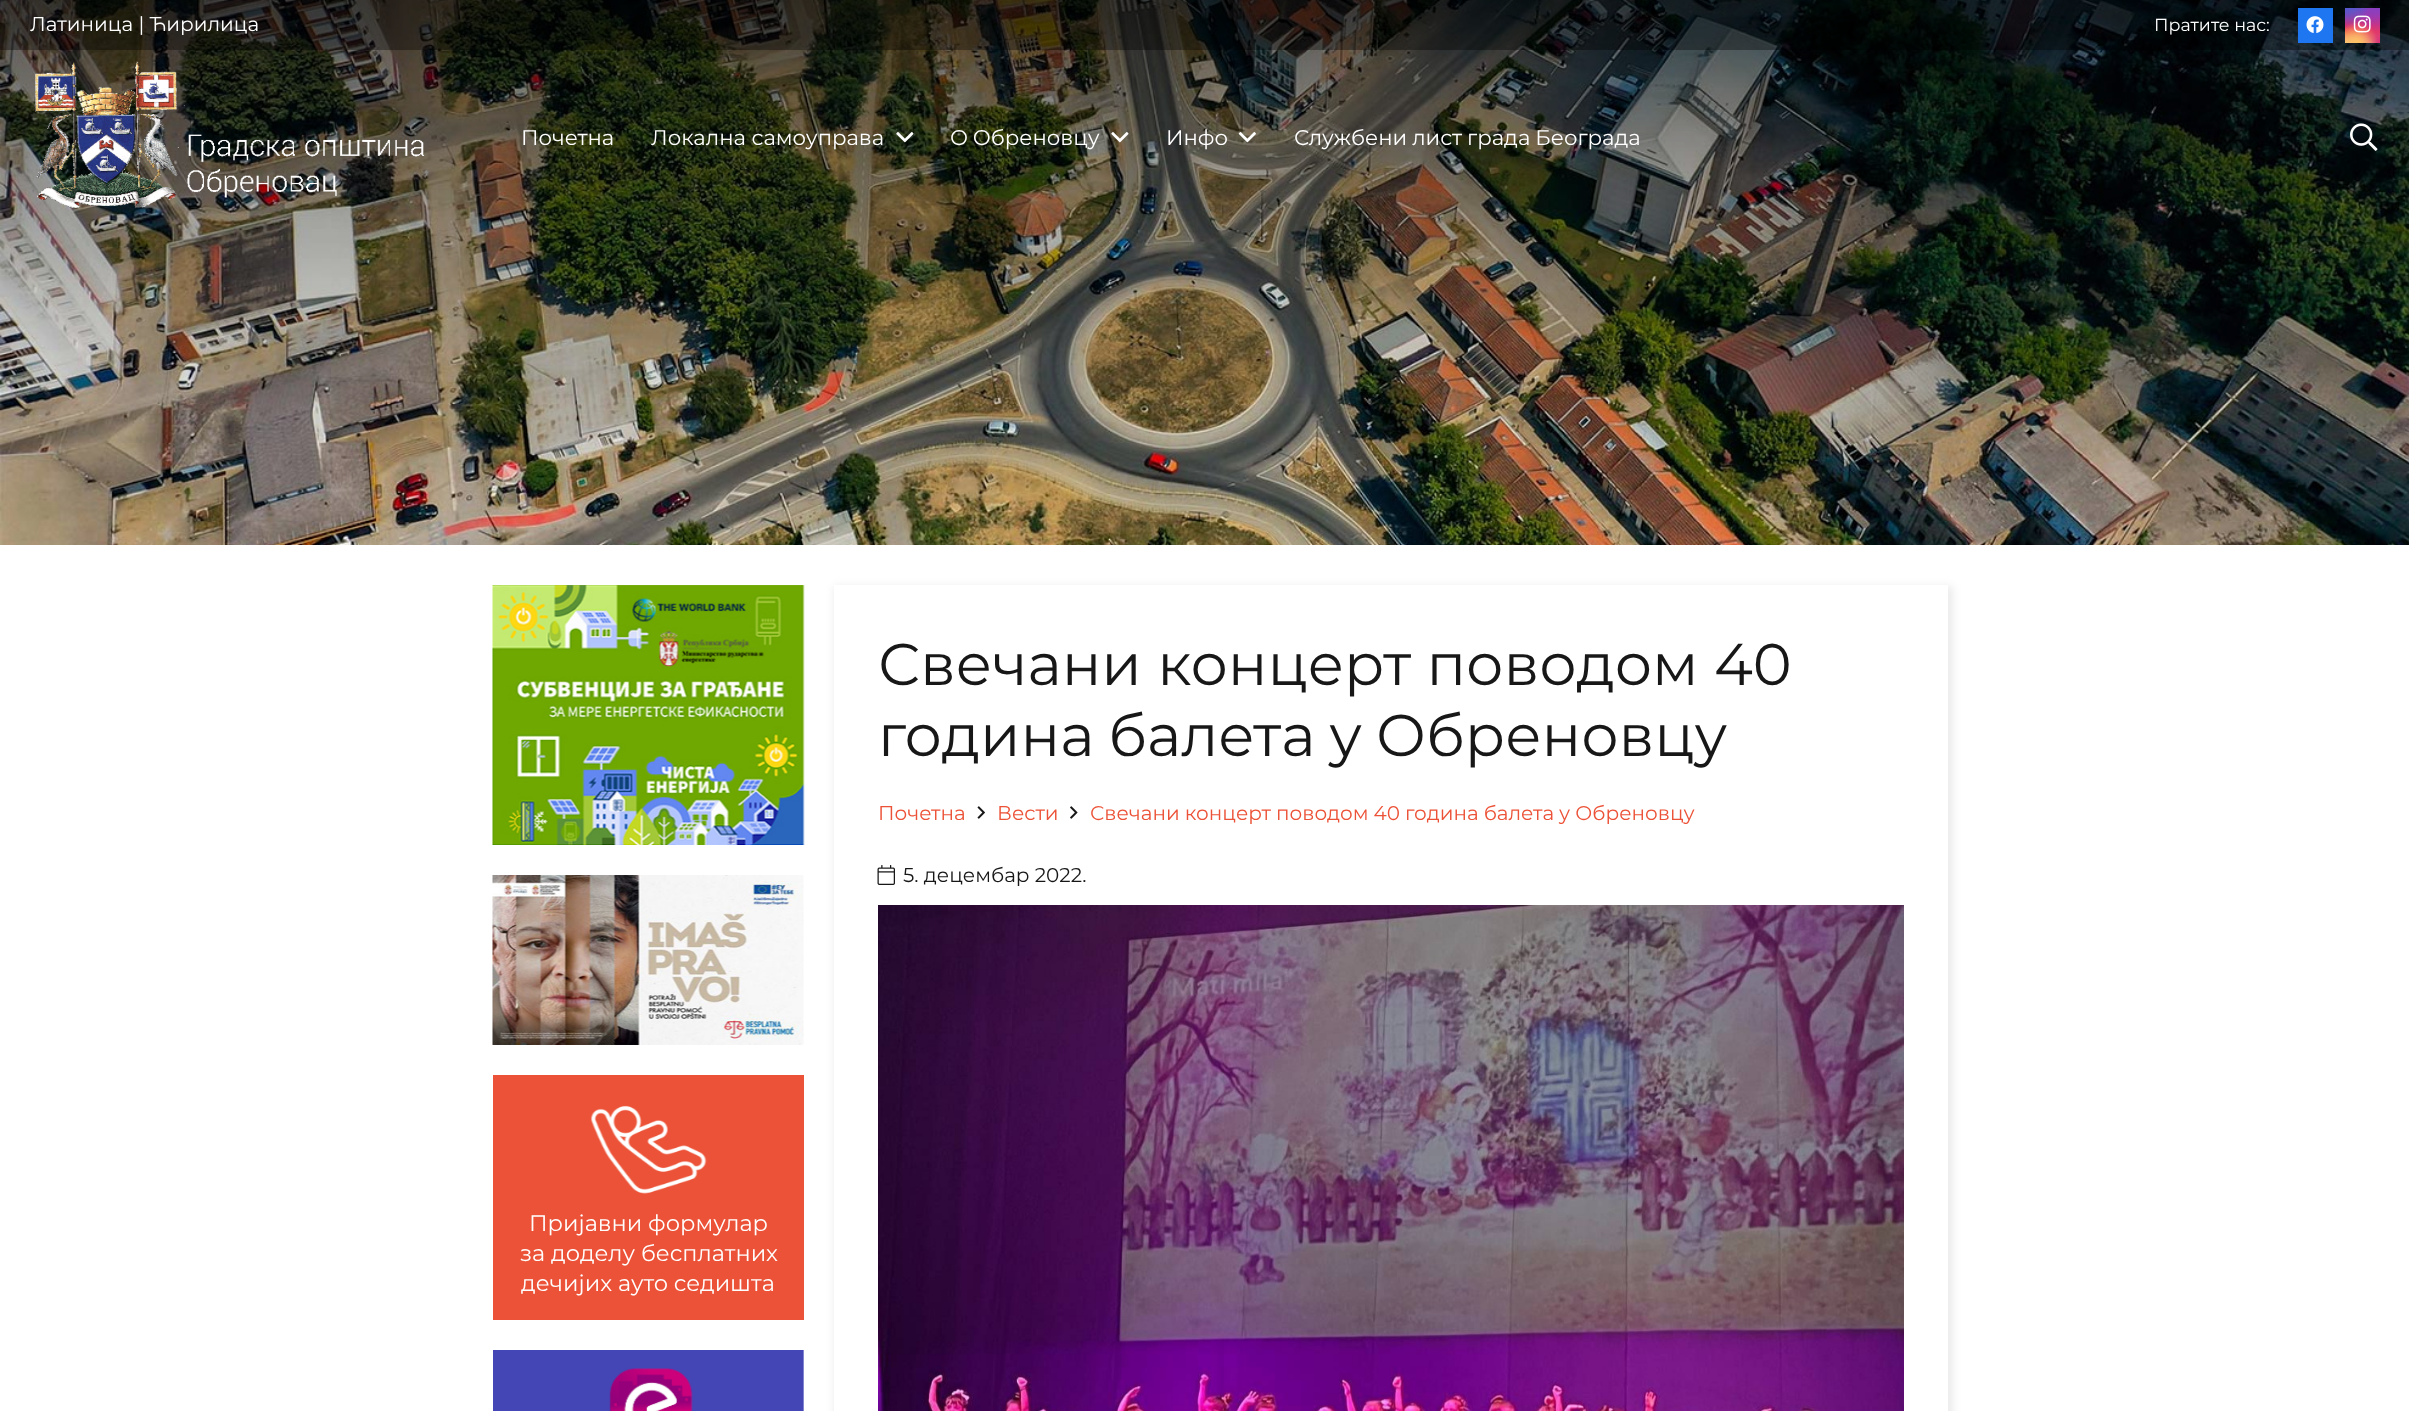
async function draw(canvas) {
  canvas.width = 2409
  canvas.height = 1411
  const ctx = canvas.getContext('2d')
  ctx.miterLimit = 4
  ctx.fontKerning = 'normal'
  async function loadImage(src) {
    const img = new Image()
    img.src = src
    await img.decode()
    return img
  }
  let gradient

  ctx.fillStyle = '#fff'
  ctx.fillRect(0, 0, 2409, 1411)
  ctx.drawImage(await loadImage('image7.png'), 0, 0, 2409, 545)
  ctx.fillStyle = '#00000059'
  ctx.fillRect(0, 0, 2409, 50)
  ctx.font = '20px Montserrat'
  ctx.fillStyle = '#fff'
  ctx.fillText('Латиница | Ћирилица', 30, 31)
  ctx.font = '17.5px Montserrat'
  ctx.fillText('Пратите нас:', 2154, 31)
  ctx.fillStyle = '#1e77f0'
  ctx.fillRect(2298, 8, 35, 35)
  ctx.drawImage(await loadImage('image0.png'), 2306, 16, 18, 17)
  gradient = ctx.createLinearGradient(2363, 7.5, 2363, 43)
  gradient.addColorStop(0, '#6559ca')
  gradient.addColorStop(0.3, '#bc318f')
  gradient.addColorStop(0.5, '#e42e66')
  gradient.addColorStop(0.7, '#fa5332')
  gradient.addColorStop(1, '#ffdc80')
  ctx.fillStyle = gradient
  ctx.fillRect(2345, 8, 35, 35)
  gradient = ctx.createRadialGradient(2380, 43, 0, 2380, 43, 49)
  gradient.addColorStop(0, '#d9317a')
  gradient.addColorStop(1, '#d9317a00')
  ctx.fillStyle = gradient
  ctx.fillRect(2345, 8, 35, 35)
  gradient = ctx.createRadialGradient(2366, 0.25, 0, 2366, 0.25, 30)
  gradient.addColorStop(0, '#893dc2')
  gradient.addColorStop(0.5, '#893dc200')
  ctx.fillStyle = gradient
  ctx.beginPath()
  ctx.rect(2354, 8, 25, 21)
  ctx.save()
  ctx.clip()
  ctx.scale(1, 59 / 30)
  ctx.fillRect(0, 0, 2409, 718)
  ctx.restore()
  gradient = ctx.createRadialGradient(2380, 7.5, 0, 2380, 7.5, 49)
  gradient.addColorStop(0, '#893dc2')
  gradient.addColorStop(0.5, '#893dc200')
  ctx.fillStyle = gradient
  ctx.fillRect(2359, 8, 21, 23)
  gradient = ctx.createRadialGradient(2352, -5.41, 0, 2352, -5.41, 40)
  gradient.addColorStop(0, '#5258cf')
  gradient.addColorStop(0.5, '#5258cf00')
  ctx.fillStyle = gradient
  ctx.beginPath()
  ctx.rect(2345, 8, 23, 18)
  ctx.save()
  ctx.clip()
  ctx.scale(1, 74 / 40)
  ctx.fillRect(0, 0, 2409, 763)
  ctx.restore()
  gradient = ctx.createRadialGradient(2345, -0.95, 0, 2345, -0.95, 49)
  gradient.addColorStop(0, '#5258cf')
  gradient.addColorStop(0.5, '#5258cf00')
  ctx.fillStyle = gradient
  ctx.beginPath()
  ctx.rect(2345, 8, 22, 21)
  ctx.save()
  ctx.clip()
  ctx.scale(1, 62 / 49)
  ctx.fillRect(0, 0, 2409, 1116)
  ctx.restore()
  gradient = ctx.createRadialGradient(2349, 56, 0, 2349, 56, 58)
  gradient.addColorStop(0, '#feda7e')
  gradient.addColorStop(0.5, '#feda7e00')
  ctx.fillStyle = gradient
  ctx.fillRect(2345, 28, 29, 15)
  gradient = ctx.createRadialGradient(2357, 43, 0, 2357, 43, 42)
  gradient.addColorStop(0, '#fec564')
  gradient.addColorStop(0.5, '#fec56400')
  ctx.fillStyle = gradient
  ctx.fillRect(2345, 22, 33, 21)
  ctx.drawImage(await loadImage('image1.png'), 2353, 15, 18, 18)
  ctx.drawImage(await loadImage('image2.png'), 35, 61, 390, 147)
  ctx.font = '21.25px Montserrat'
  ctx.fillStyle = '#fff'
  ctx.fillText('Почетна', 521, 145)
  ctx.fillText('Локална самоуправа', 651, 145)
  ctx.drawImage(await loadImage('image3.png'), 896, 132, 18, 11)
  ctx.wordSpacing = '-1px'
  ctx.fillText('О Обреновцу', 950, 145)
  ctx.drawImage(await loadImage('image4.png'), 1111, 132, 18, 11)
  ctx.wordSpacing = '0px'
  ctx.fillText('Инфо', 1166, 145)
  ctx.drawImage(await loadImage('image5.png'), 1238, 132, 18, 11)
  ctx.wordSpacing = '-0.5px'
  ctx.fillText('Службени лист града Београда', 1294, 145)
  ctx.drawImage(await loadImage('image6.png'), 2350, 123, 28, 28)
  ctx.save()
  ctx.beginPath()
  ctx.moveTo(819, 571)
  ctx.lineTo(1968, 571)
  ctx.lineTo(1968, 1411)
  ctx.lineTo(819, 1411)
  ctx.closePath()
  ctx.moveTo(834, 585)
  ctx.lineTo(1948, 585)
  ctx.lineTo(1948, 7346)
  ctx.lineTo(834, 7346)
  ctx.closePath()
  ctx.clip('evenodd')
  ctx.fillStyle = '#ebebeb'
  ctx.filter = 'blur(4.5px)'
  ctx.beginPath()
  ctx.rect(834, 586, 1119, 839)
  ctx.fill()
  ctx.filter = 'none'
  ctx.restore()
  ctx.wordSpacing = '0px'
  ctx.font = '58.8px Montserrat'
  ctx.fillStyle = '#171717'
  ctx.fillText('Свечани концерт поводом 40', 878, 685)
  ctx.wordSpacing = '-1.5px'
  ctx.fillText('година балета у Обреновцу', 878, 756)
  ctx.wordSpacing = '0px'
  ctx.font = '20px Montserrat'
  ctx.fillStyle = '#ec5237'
  ctx.fillText('Почетна', 878, 820)
  ctx.drawImage(await loadImage('image8.png'), 977, 806, 8, 13)
  ctx.fillText('Вести', 997, 820)
  ctx.drawImage(await loadImage('image9.png'), 1070, 806, 8, 13)
  ctx.wordSpacing = '-0.25px'
  ctx.fillText('Свечани концерт поводом 40 година балета у Обреновцу', 1090, 820)
  ctx.drawImage(await loadImage('image10.png'), 877, 865, 18, 20)
  ctx.wordSpacing = '0px'
  ctx.fillStyle = '#171717'
  ctx.fillText('5. децембар 2022.', 903, 882)
  ctx.drawImage(await loadImage('image11.png'), 878, 905, 1026, 506)
  ctx.drawImage(await loadImage('image12.png'), 492, 585, 313, 260)
  ctx.drawImage(await loadImage('image13.png'), 492, 875, 312, 170)
  ctx.fillStyle = '#ec5237'
  ctx.fillRect(493, 1075, 311, 245)
  ctx.drawImage(await loadImage('image14.png'), 590, 1105, 117, 89)
  ctx.font = '22.5px Montserrat'
  ctx.fillStyle = '#fff'
  ctx.fillText('Пријавни формулар', 529, 1231)
  ctx.fillText('за доделу бесплатних', 520, 1261)
  ctx.fillText('дечијих ауто седишта', 521, 1291)
  ctx.drawImage(await loadImage('image15.png'), 493, 1350, 311, 61)
}

draw(document.querySelector('canvas'))
